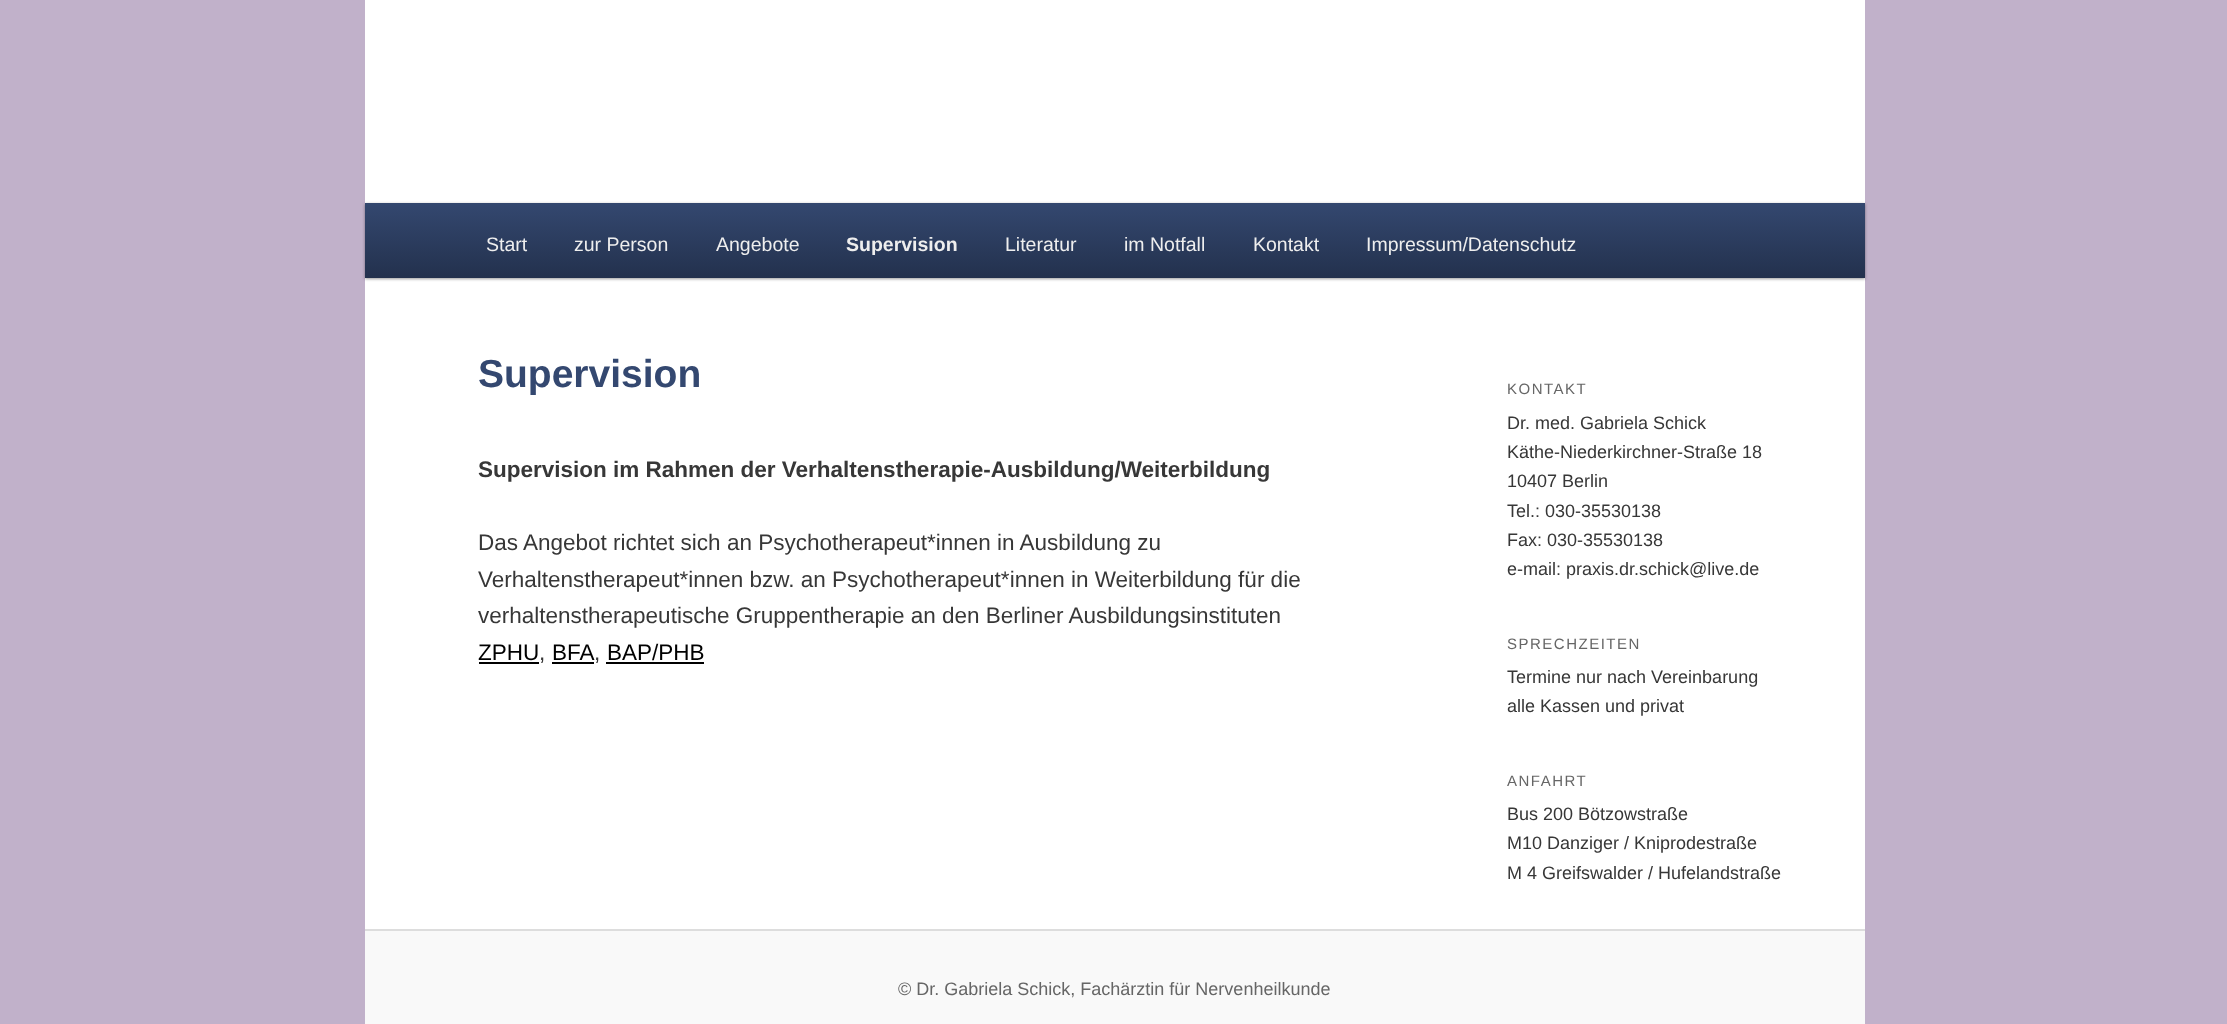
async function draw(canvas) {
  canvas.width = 2227
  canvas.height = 1024
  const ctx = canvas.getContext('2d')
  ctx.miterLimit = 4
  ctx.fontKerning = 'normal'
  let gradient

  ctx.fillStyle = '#c1b1ca'
  ctx.fillRect(0, 0, 2227, 1024)
  ctx.fillStyle = '#fff'
  ctx.fillRect(365, 0, 1500, 929)
  ctx.fillStyle = '#00000066'
  ctx.filter = 'blur(1.5px)'
  ctx.beginPath()
  ctx.rect(365, 204, 1500, 75)
  ctx.fill()
  ctx.filter = 'none'
  gradient = ctx.createLinearGradient(1115, 202, 1115, 278)
  gradient.addColorStop(0, '#344870')
  gradient.addColorStop(1, '#23314d')
  ctx.fillStyle = gradient
  ctx.fillRect(365, 203, 1500, 75)
  ctx.font = '19.5px Liberation Sans'
  ctx.fillStyle = '#eee'
  ctx.fillText('Start', 486, 251)
  ctx.fillText('zur Person', 574, 251)
  ctx.fillText('Angebote', 716, 251)
  ctx.font = 'bold 19.5px Liberation Sans'
  ctx.fillText('Supervision', 846, 251)
  ctx.font = '19.5px Liberation Sans'
  ctx.fillText('Literatur', 1005, 251)
  ctx.fillText('im Notfall', 1124, 251)
  ctx.fillText('Kontakt', 1253, 251)
  ctx.fillText('Impressum/Datenschutz', 1366, 251)
  ctx.font = 'bold 39px Liberation Sans'
  ctx.fillStyle = '#344870'
  ctx.fillText('Supervision', 478, 387)
  ctx.font = 'bold 22.5px Liberation Sans'
  ctx.fillStyle = '#373737'
  ctx.fillText('Supervision im Rahmen der Verhaltenstherapie-Ausbildung/Weiterbildung', 478, 477)
  ctx.font = '22.5px Liberation Sans'
  ctx.fillText('Das Angebot richtet sich an Psychotherapeut*innen in Ausbildung zu', 478, 550)
  ctx.fillText('Verhaltenstherapeut*innen bzw. an Psychotherapeut*innen in Weiterbildung für die', 478, 587)
  ctx.fillText('verhaltenstherapeutische Gruppentherapie an den Berliner Ausbildungsinstituten', 478, 623)
  ctx.fillStyle = '#000'
  ctx.fillText('ZPHU', 478, 660)
  ctx.fillRect(479, 662, 60, 2)
  ctx.fillStyle = '#373737'
  ctx.fillText(',', 539, 660)
  ctx.fillStyle = '#000'
  ctx.fillText('BFA', 552, 660)
  ctx.fillRect(552, 662, 42, 2)
  ctx.fillStyle = '#373737'
  ctx.fillText(',', 594, 660)
  ctx.fillStyle = '#000'
  ctx.fillText('BAP/PHB', 607, 660)
  ctx.fillRect(606, 662, 98, 2)
  ctx.letterSpacing = '1.5px'
  ctx.font = '15px Liberation Sans'
  ctx.fillStyle = '#666'
  ctx.fillText('KONTAKT', 1507, 394)
  ctx.letterSpacing = '0px'
  ctx.font = '18px Liberation Sans'
  ctx.fillStyle = '#373737'
  ctx.fillText('Dr. med. Gabriela Schick', 1507, 429)
  ctx.fillText('Käthe-Niederkirchner-Straße 18', 1507, 458)
  ctx.fillText('10407 Berlin', 1507, 487)
  ctx.fillText('Tel.: 030-35530138', 1507, 517)
  ctx.fillText('Fax: 030-35530138', 1507, 546)
  ctx.fillText('e-mail: praxis.dr.schick@live.de', 1507, 575)
  ctx.letterSpacing = '1.5px'
  ctx.font = '15px Liberation Sans'
  ctx.fillStyle = '#666'
  ctx.fillText('SPRECHZEITEN', 1507, 649)
  ctx.letterSpacing = '0px'
  ctx.font = '18px Liberation Sans'
  ctx.fillStyle = '#373737'
  ctx.fillText('Termine nur nach Vereinbarung', 1507, 683)
  ctx.fillText('alle Kassen und privat', 1507, 712)
  ctx.letterSpacing = '1.5px'
  ctx.font = '15px Liberation Sans'
  ctx.fillStyle = '#666'
  ctx.fillText('ANFAHRT', 1507, 786)
  ctx.letterSpacing = '0px'
  ctx.font = '18px Liberation Sans'
  ctx.fillStyle = '#373737'
  ctx.fillText('Bus 200 Bötzowstraße', 1507, 820)
  ctx.fillText('M10 Danziger / Kniprodestraße', 1507, 849)
  ctx.fillText('M 4 Greifswalder / Hufelandstraße', 1507, 879)
  ctx.fillStyle = '#f9f9f9'
  ctx.fillRect(365, 931, 1500, 93)
  ctx.fillStyle = '#ddd'
  ctx.fillRect(365, 929, 1500, 2)
  ctx.fillStyle = '#666'
  ctx.fillText('© Dr. Gabriela Schick, Fachärztin für Nervenheilkunde', 898, 995)
}

draw(document.querySelector('canvas'))
